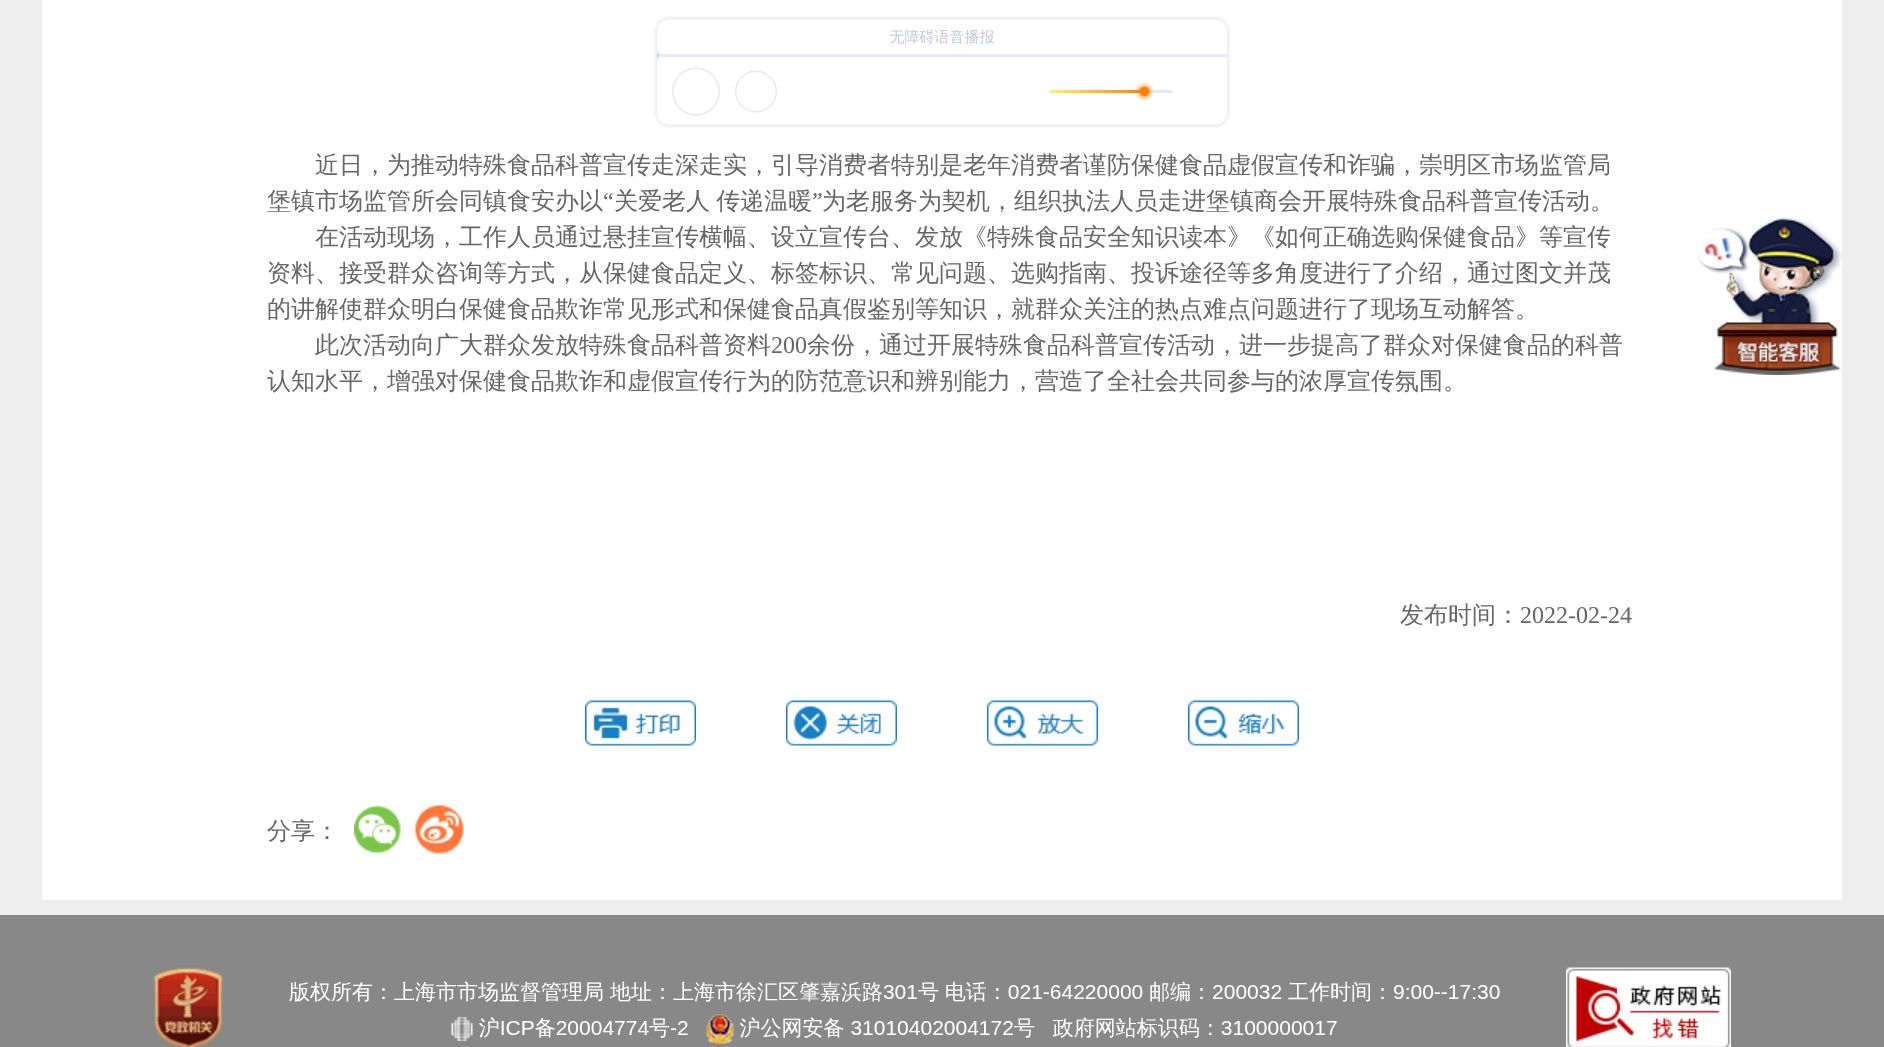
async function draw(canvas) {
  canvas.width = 1884
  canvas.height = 1047
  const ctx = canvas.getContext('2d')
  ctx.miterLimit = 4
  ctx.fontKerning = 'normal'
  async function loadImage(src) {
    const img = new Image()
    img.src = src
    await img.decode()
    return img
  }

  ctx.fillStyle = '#eee'
  ctx.fillRect(0, 0, 1884, 1047)
  ctx.fillStyle = '#fff'
  ctx.fillRect(42, 0, 1800, 900)
  ctx.drawImage(await loadImage('image0.png'), 654, 16, 576, 112)
  ctx.font = '500 24px WenQuanYi Zen Hei'
  ctx.fillStyle = '#666'
  ctx.fillText('近日，为推动特殊食品科普宣传走深走实，引导消费者特别是老年消费者谨防保健食品虚假宣传和诈骗，崇明区市场监管局', 315, 173)
  ctx.fillText('堡镇市场监管所会同镇食安办以', 267, 209)
  ctx.font = '24px Liberation Serif'
  ctx.fillText('“', 603, 209)
  ctx.wordSpacing = '-1px'
  ctx.font = '500 24px WenQuanYi Zen Hei'
  ctx.fillText('关爱老人 传递温暖', 614, 209)
  ctx.wordSpacing = '0px'
  ctx.font = '24px Liberation Serif'
  ctx.fillText('”', 812, 209)
  ctx.font = '500 24px WenQuanYi Zen Hei'
  ctx.fillText('为老服务为契机，组织执法人员走进堡镇商会开展特殊食品科普宣传活动。', 822, 209)
  ctx.fillText('在活动现场，工作人员通过悬挂宣传横幅、设立宣传台、发放《特殊食品安全知识读本》《如何正确选购保健食品》等宣传', 315, 245)
  ctx.fillText('资料、接受群众咨询等方式，从保健食品定义、标签标识、常见问题、选购指南、投诉途径等多角度进行了介绍，通过图文并茂', 267, 281)
  ctx.fillText('的讲解使群众明白保健食品欺诈常见形式和保健食品真假鉴别等知识，就群众关注的热点难点问题进行了现场互动解答。', 267, 317)
  ctx.fillText('此次活动向广大群众发放特殊食品科普资料', 315, 353)
  ctx.font = '24px Liberation Serif'
  ctx.fillText('200', 771, 353)
  ctx.font = '500 24px WenQuanYi Zen Hei'
  ctx.fillText('余份，通过开展特殊食品科普宣传活动，进一步提高了群众对保健食品的科普', 807, 353)
  ctx.fillText('认知水平，增强对保健食品欺诈和虚假宣传行为的防范意识和辨别能力，营造了全社会共同参与的浓厚宣传氛围。', 267, 389)
  ctx.fillText('发布时间：', 1400, 623)
  ctx.font = '24px Liberation Serif'
  ctx.fillText('2022-02-24', 1520, 623)
  ctx.drawImage(await loadImage('image1.png'), 585, 700, 111, 46)
  ctx.drawImage(await loadImage('image2.png'), 786, 700, 111, 46)
  ctx.drawImage(await loadImage('image3.png'), 987, 700, 111, 46)
  ctx.drawImage(await loadImage('image4.png'), 1188, 700, 111, 46)
  ctx.font = '500 24px WenQuanYi Zen Hei'
  ctx.fillText('分享：', 267, 839)
  ctx.drawImage(await loadImage('image5.png'), 354, 805, 47, 49)
  ctx.drawImage(await loadImage('image6.png'), 415, 805, 49, 49)
  ctx.drawImage(await loadImage('image7.png'), 0, 915, 1884, 132)
  ctx.drawImage(await loadImage('image8.png'), 1696, 217, 146, 158)
}

draw(document.querySelector('canvas'))
